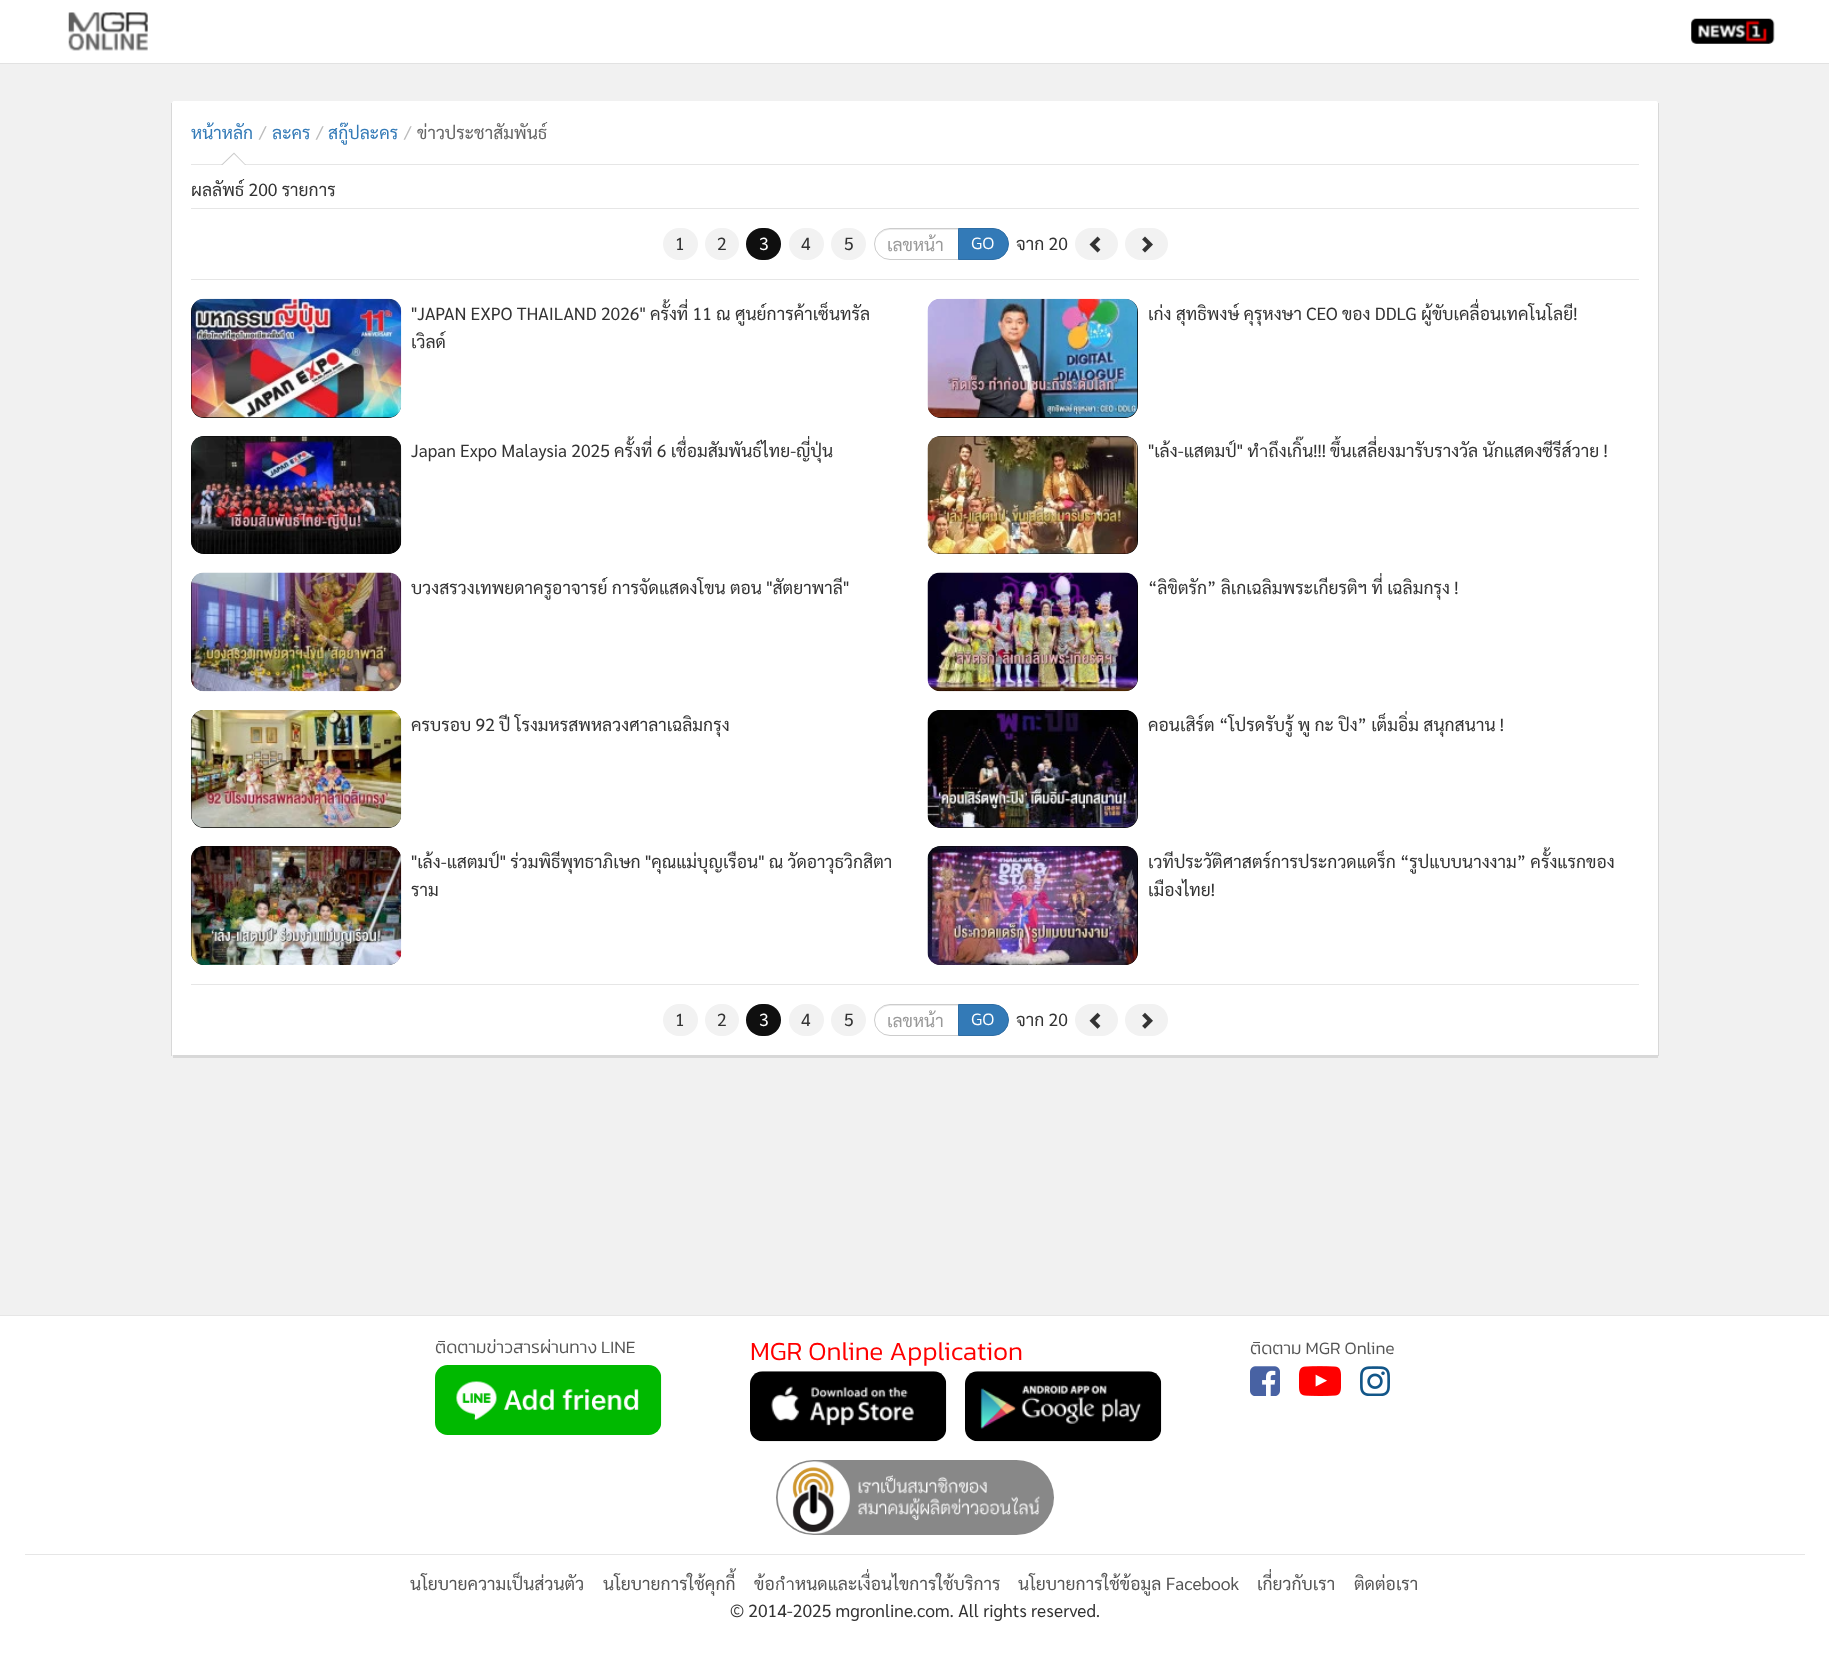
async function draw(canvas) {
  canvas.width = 1829
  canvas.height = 1666
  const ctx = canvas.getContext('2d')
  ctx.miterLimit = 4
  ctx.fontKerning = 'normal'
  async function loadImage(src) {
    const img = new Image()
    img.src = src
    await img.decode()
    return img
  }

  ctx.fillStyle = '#f1f1f1'
  ctx.fillRect(0, 0, 1829, 1666)
  ctx.fillStyle = '#fff'
  ctx.fillRect(0, 0, 1829, 63)
  ctx.fillStyle = '#e2e2e2'
  ctx.fillRect(0, 63, 1829, 1)
  ctx.drawImage(await loadImage('image0.png'), 68, 12, 80, 39)
  ctx.drawImage(await loadImage('image1.png'), 1691, 18, 84, 26)
  ctx.fillStyle = '#fff'
  ctx.beginPath()
  ctx.moveTo(174, 101)
  ctx.lineTo(1656, 101)
  ctx.bezierCurveTo(1657, 101, 1658, 102, 1658, 104)
  ctx.lineTo(1658, 1055)
  ctx.lineTo(172, 1055)
  ctx.lineTo(172, 104)
  ctx.bezierCurveTo(172, 102, 173, 101, 174, 101)
  ctx.closePath()
  ctx.fill()
  ctx.fillStyle = '#d8d8d8'
  ctx.fillRect(1658, 103, 1, 953)
  ctx.fillRect(173, 1055, 1485, 3)
  ctx.fillRect(171, 103, 1, 953)
  ctx.fillStyle = '#e6e6e6'
  ctx.fillRect(191, 164, 1448, 1)
  ctx.font = '17.5px Sarabun'
  ctx.fillStyle = '#337ab7'
  ctx.fillText('หน้าหลัก', 191, 139)
  ctx.fillStyle = '#bbb'
  ctx.fillText('/', 259, 139)
  ctx.fillStyle = '#337ab7'
  ctx.fillText('ละคร', 272, 139)
  ctx.fillStyle = '#bbb'
  ctx.fillText('/', 316, 139)
  ctx.fillStyle = '#337ab7'
  ctx.fillText('สกู๊ปละคร', 328, 139)
  ctx.fillStyle = '#bbb'
  ctx.fillText('/', 404, 139)
  ctx.fillStyle = '#656565'
  ctx.fillText('ข่าวประชาสัมพันธ์', 417, 139)
  ctx.fillStyle = '#ccc'
  ctx.beginPath()
  ctx.moveTo(246, 165)
  ctx.lineTo(221, 165)
  ctx.lineTo(234, 152.5)
  ctx.closePath()
  ctx.fill()
  ctx.fillStyle = '#fff'
  ctx.beginPath()
  ctx.moveTo(245, 165)
  ctx.lineTo(222.5, 165)
  ctx.lineTo(234, 154)
  ctx.closePath()
  ctx.fill()
  ctx.fillStyle = '#333'
  ctx.fillText('ผลลัพธ์ 200 รายการ', 191, 196)
  ctx.fillStyle = '#e6e6e6'
  ctx.fillRect(191, 208, 1448, 1)
  ctx.fillRect(191, 279, 1448, 1)
  ctx.fillStyle = '#f2f2f2'
  ctx.beginPath()
  ctx.roundRect(663, 228, 35, 32, 16)
  ctx.fill()
  ctx.fillStyle = '#333'
  ctx.fillText('1', 675, 250)
  ctx.fillStyle = '#f2f2f2'
  ctx.beginPath()
  ctx.roundRect(705, 228, 34, 32, 16)
  ctx.fill()
  ctx.fillStyle = '#333'
  ctx.fillText('2', 717, 250)
  ctx.fillStyle = '#0f0f0f'
  ctx.beginPath()
  ctx.roundRect(746, 228, 35, 32, 16)
  ctx.fill()
  ctx.fillStyle = '#fff'
  ctx.fillText('3', 759, 250)
  ctx.fillStyle = '#f2f2f2'
  ctx.beginPath()
  ctx.roundRect(789, 228, 35, 32, 16)
  ctx.fill()
  ctx.fillStyle = '#333'
  ctx.fillText('4', 801, 250)
  ctx.fillStyle = '#f2f2f2'
  ctx.beginPath()
  ctx.roundRect(831, 228, 35, 32, 16)
  ctx.fill()
  ctx.fillStyle = '#333'
  ctx.fillText('5', 844, 250)
  ctx.fillStyle = '#ececec'
  ctx.beginPath()
  ctx.moveTo(890, 230)
  ctx.lineTo(958, 230)
  ctx.lineTo(958, 229)
  ctx.lineTo(887, 229)
  ctx.bezierCurveTo(880, 231, 875, 237, 875, 245)
  ctx.bezierCurveTo(875, 237, 882, 230, 890, 230)
  ctx.closePath()
  ctx.fill()
  ctx.beginPath()
  ctx.roundRect(874.5, 228.5, 84, 31, [15.5, 0, 0, 15.5])
  ctx.strokeStyle = '#ccc'
  ctx.stroke()
  ctx.fillStyle = '#999'
  ctx.fillText('เลขหน้า', 887, 251)
  ctx.fillStyle = '#337ab7'
  ctx.beginPath()
  ctx.roundRect(958.5, 228.5, 50, 31, [0, 15.5, 15.5, 0])
  ctx.fill()
  ctx.strokeStyle = '#2e6da4'
  ctx.stroke()
  ctx.font = '300 17.5px Kanit'
  ctx.fillStyle = '#fff'
  ctx.fillText('GO', 971, 249)
  ctx.font = '17.5px Sarabun'
  ctx.fillStyle = '#333'
  ctx.fillText('จาก 20', 1016, 250)
  ctx.fillStyle = '#f2f2f2'
  ctx.beginPath()
  ctx.roundRect(1075, 228, 43, 32, 16)
  ctx.fill()
  ctx.drawImage(await loadImage('image2.png'), 1089, 236, 12, 17)
  ctx.beginPath()
  ctx.roundRect(1125, 228, 43, 32, 16)
  ctx.fill()
  ctx.drawImage(await loadImage('image3.png'), 1142, 236, 11, 17)
  ctx.fillStyle = '#000'
  ctx.beginPath()
  ctx.roundRect(191, 299, 210, 119, 13)
  ctx.fill()
  ctx.drawImage(await loadImage('image4.png'), 191, 298, 211, 120)
  ctx.save()
  ctx.beginPath()
  ctx.rect(411, 299, 492, 86)
  ctx.clip()
  ctx.fillStyle = '#333'
  ctx.fillText('"JAPAN EXPO THAILAND 2026" ครั้งที่ 11 ณ ศูนย์การค้าเซ็นทรัล', 411, 320)
  ctx.fillText('เวิลด์', 411, 348)
  ctx.restore()
  ctx.beginPath()
  ctx.roundRect(928, 299, 210, 119, 13)
  ctx.fill()
  ctx.drawImage(await loadImage('image5.png'), 927, 298, 211, 120)
  ctx.fillStyle = '#333'
  ctx.fillText('เก่ง สุทธิพงษ์ คุรุหงษา CEO ของ DDLG ผู้ขับเคลื่อนเทคโนโลยี!', 1148, 320)
  ctx.fillStyle = '#000'
  ctx.beginPath()
  ctx.roundRect(191, 436, 210, 118, 13)
  ctx.fill()
  ctx.drawImage(await loadImage('image6.png'), 191, 436, 211, 118)
  ctx.save()
  ctx.beginPath()
  ctx.rect(411, 436, 492, 58)
  ctx.clip()
  ctx.fillStyle = '#333'
  ctx.fillText('Japan Expo Malaysia 2025 ครั้งที่ 6 เชื่อมสัมพันธ์ไทย-ญี่ปุ่น', 411, 457)
  ctx.restore()
  ctx.beginPath()
  ctx.roundRect(928, 436, 210, 118, 13)
  ctx.fill()
  ctx.drawImage(await loadImage('image7.png'), 927, 436, 211, 118)
  ctx.save()
  ctx.beginPath()
  ctx.rect(1148, 436, 491, 58)
  ctx.clip()
  ctx.fillStyle = '#333'
  ctx.fillText('"เล้ง-แสตมป์" ทำถึงเกิ๊น!!! ขึ้นเสลี่ยงมารับรางวัล นักแสดงซีรีส์วาย !', 1148, 457)
  ctx.restore()
  ctx.beginPath()
  ctx.roundRect(191, 573, 210, 118, 13)
  ctx.fill()
  ctx.drawImage(await loadImage('image8.png'), 191, 572, 211, 120)
  ctx.fillStyle = '#333'
  ctx.fillText('บวงสรวงเทพยดาครูอาจารย์ การจัดแสดงโขน ตอน "สัตยาพาลี"', 411, 594)
  ctx.fillStyle = '#000'
  ctx.beginPath()
  ctx.roundRect(928, 573, 210, 118, 13)
  ctx.fill()
  ctx.drawImage(await loadImage('image9.png'), 927, 572, 211, 120)
  ctx.fillStyle = '#333'
  ctx.fillText('“ลิขิตรัก” ลิเกเฉลิมพระเกียรติฯ ที่ เฉลิมกรุง !', 1148, 594)
  ctx.fillStyle = '#000'
  ctx.beginPath()
  ctx.roundRect(191, 710, 210, 118, 13)
  ctx.fill()
  ctx.drawImage(await loadImage('image10.png'), 191, 710, 211, 118)
  ctx.fillStyle = '#333'
  ctx.fillText('ครบรอบ 92 ปี โรงมหรสพหลวงศาลาเฉลิมกรุง', 411, 731)
  ctx.fillStyle = '#000'
  ctx.beginPath()
  ctx.roundRect(928, 710, 210, 118, 13)
  ctx.fill()
  ctx.drawImage(await loadImage('image11.png'), 927, 710, 211, 118)
  ctx.fillStyle = '#333'
  ctx.fillText('คอนเสิร์ต “โปรดรับรู้ พู กะ ปิง” เต็มอิ่ม สนุกสนาน !', 1148, 731)
  ctx.fillStyle = '#000'
  ctx.beginPath()
  ctx.roundRect(191, 846, 210, 119, 13)
  ctx.fill()
  ctx.drawImage(await loadImage('image12.png'), 191, 846, 211, 119)
  ctx.fillStyle = '#333'
  ctx.fillText('"เล้ง-แสตมป์" ร่วมพิธีพุทธาภิเษก "คุณแม่บุญเรือน" ณ วัดอาวุธวิกสิตา', 411, 868)
  ctx.fillText('ราม', 411, 896)
  ctx.fillStyle = '#000'
  ctx.beginPath()
  ctx.roundRect(928, 846, 210, 119, 13)
  ctx.fill()
  ctx.drawImage(await loadImage('image13.png'), 927, 846, 211, 119)
  ctx.fillStyle = '#333'
  ctx.fillText('เวทีประวัติศาสตร์การประกวดแดร็ก “รูปแบบนางงาม” ครั้งแรกของ', 1148, 868)
  ctx.save()
  ctx.beginPath()
  ctx.rect(1148, 846, 491, 87)
  ctx.clip()
  ctx.fillText('เมืองไทย!', 1148, 896)
  ctx.restore()
  ctx.fillStyle = '#e6e6e6'
  ctx.fillRect(191, 984, 1448, 1)
  ctx.fillStyle = '#f2f2f2'
  ctx.beginPath()
  ctx.roundRect(663, 1004, 35, 32, 16)
  ctx.fill()
  ctx.fillStyle = '#333'
  ctx.fillText('1', 675, 1026)
  ctx.fillStyle = '#f2f2f2'
  ctx.beginPath()
  ctx.roundRect(705, 1004, 34, 32, 16)
  ctx.fill()
  ctx.fillStyle = '#333'
  ctx.fillText('2', 717, 1026)
  ctx.fillStyle = '#0f0f0f'
  ctx.beginPath()
  ctx.roundRect(746, 1004, 35, 32, 16)
  ctx.fill()
  ctx.fillStyle = '#fff'
  ctx.fillText('3', 759, 1026)
  ctx.fillStyle = '#f2f2f2'
  ctx.beginPath()
  ctx.roundRect(789, 1004, 35, 32, 16)
  ctx.fill()
  ctx.fillStyle = '#333'
  ctx.fillText('4', 801, 1026)
  ctx.fillStyle = '#f2f2f2'
  ctx.beginPath()
  ctx.roundRect(831, 1004, 35, 32, 16)
  ctx.fill()
  ctx.fillStyle = '#333'
  ctx.fillText('5', 844, 1026)
  ctx.fillStyle = '#ececec'
  ctx.beginPath()
  ctx.moveTo(890, 1006)
  ctx.lineTo(958, 1006)
  ctx.lineTo(958, 1005)
  ctx.lineTo(887, 1005)
  ctx.bezierCurveTo(880, 1007, 875, 1013, 875, 1021)
  ctx.bezierCurveTo(875, 1013, 882, 1006, 890, 1006)
  ctx.closePath()
  ctx.fill()
  ctx.beginPath()
  ctx.roundRect(874.5, 1004.5, 84, 31, [15.5, 0, 0, 15.5])
  ctx.strokeStyle = '#ccc'
  ctx.stroke()
  ctx.fillStyle = '#999'
  ctx.fillText('เลขหน้า', 887, 1027)
  ctx.fillStyle = '#337ab7'
  ctx.beginPath()
  ctx.roundRect(958.5, 1004.5, 50, 31, [0, 15.5, 15.5, 0])
  ctx.fill()
  ctx.strokeStyle = '#2e6da4'
  ctx.stroke()
  ctx.font = '300 17.5px Kanit'
  ctx.fillStyle = '#fff'
  ctx.fillText('GO', 971, 1025)
  ctx.font = '17.5px Sarabun'
  ctx.fillStyle = '#333'
  ctx.fillText('จาก 20', 1016, 1026)
  ctx.fillStyle = '#f2f2f2'
  ctx.beginPath()
  ctx.roundRect(1075, 1004, 43, 32, 16)
  ctx.fill()
  ctx.drawImage(await loadImage('image14.png'), 1089, 1012, 12, 17)
  ctx.beginPath()
  ctx.roundRect(1125, 1004, 43, 32, 16)
  ctx.fill()
  ctx.drawImage(await loadImage('image15.png'), 1142, 1012, 11, 17)
  ctx.fillStyle = '#fff'
  ctx.fillRect(0, 1316, 1829, 350)
  ctx.fillStyle = '#e6e6e6'
  ctx.fillRect(0, 1315, 1829, 1)
  ctx.fillRect(25, 1554, 1780, 1)
  ctx.font = '300 17.5px Kanit'
  ctx.fillStyle = '#555'
  ctx.fillText('ติดตามข่าวสารผ่านทาง LINE', 435, 1353)
  ctx.drawImage(await loadImage('image16.png'), 435, 1365, 227, 70)
  ctx.font = '300 26.25px Kanit'
  ctx.fillStyle = '#f00'
  ctx.fillText('MGR Online Application', 750, 1360)
  ctx.drawImage(await loadImage('image17.png'), 750, 1371, 197, 71)
  ctx.drawImage(await loadImage('image18.png'), 965, 1371, 197, 71)
  ctx.font = '300 17.5px Kanit'
  ctx.fillStyle = '#555'
  ctx.fillText('ติดตาม MGR Online', 1250, 1354)
  ctx.drawImage(await loadImage('image19.png'), 1250, 1366, 30, 30)
  ctx.drawImage(await loadImage('image20.png'), 1299, 1366, 42, 30)
  ctx.drawImage(await loadImage('image21.png'), 1360, 1366, 30, 30)
  ctx.fillStyle = '#888'
  ctx.beginPath()
  ctx.roundRect(776, 1460, 278, 75, 37.5)
  ctx.fill()
  ctx.drawImage(await loadImage('image22.png'), 777, 1461, 263, 73)
  ctx.font = '17.5px Sarabun'
  ctx.fillStyle = '#555'
  ctx.fillText('นโยบายความเป็นส่วนตัว', 410, 1590)
  ctx.fillText('นโยบายการใช้คุกกี้', 603, 1590)
  ctx.fillText('ข้อกำหนดและเงื่อนไขการใช้บริการ', 754, 1590)
  ctx.fillText('นโยบายการใช้ข้อมูล Facebook', 1018, 1590)
  ctx.fillText('เกี่ยวกับเรา', 1257, 1590)
  ctx.fillText('ติดต่อเรา', 1354, 1590)
  ctx.fillStyle = '#333'
  ctx.fillText('© 2014-2025 mgronline.com. All rights reserved.', 730, 1617)
}

draw(document.querySelector('canvas'))
